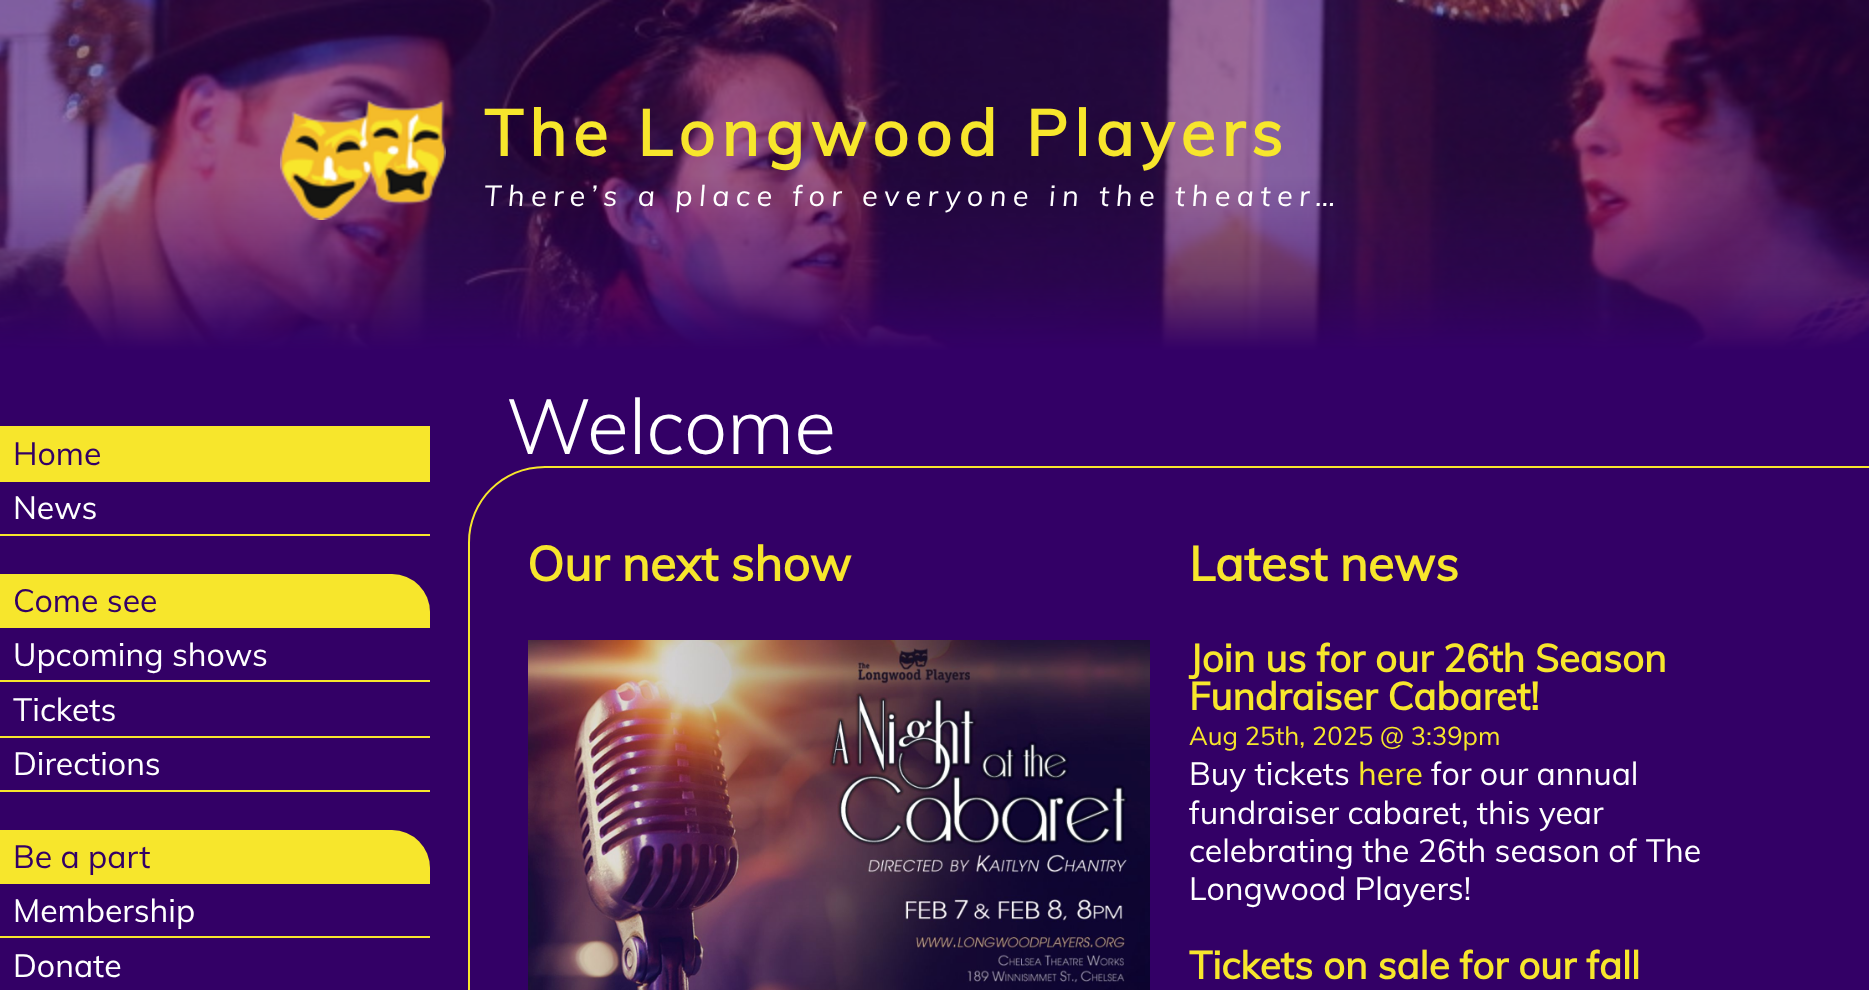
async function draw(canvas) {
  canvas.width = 1869
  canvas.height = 990
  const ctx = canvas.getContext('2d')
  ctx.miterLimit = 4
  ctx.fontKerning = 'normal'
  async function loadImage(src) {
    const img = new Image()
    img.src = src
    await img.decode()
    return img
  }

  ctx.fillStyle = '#306'
  ctx.fillRect(0, 0, 1869, 990)
  ctx.drawImage(await loadImage('image0.png'), 0, 0, 1869, 350)
  ctx.drawImage(await loadImage('image1.png'), 280, 100, 166, 120)
  ctx.letterSpacing = '6.4px'
  ctx.font = 'bold 64px Muli'
  ctx.fillStyle = '#f7e62c'
  ctx.fillText('The Longwood Players', 484, 156)
  ctx.font = 'italic 28.8px Muli'
  ctx.fillStyle = '#fff'
  ctx.fillText('There’s a place for everyone in the theater…', 484, 206)
  ctx.fillStyle = '#f7e62c'
  ctx.fillRect(0, 426, 430, 56)
  ctx.letterSpacing = '0px'
  ctx.font = '32px Muli'
  ctx.fillStyle = '#306'
  ctx.fillText('Home', 13, 465)
  ctx.fillStyle = '#f7e62c'
  ctx.fillRect(0, 534, 430, 2)
  ctx.fillStyle = '#fff'
  ctx.fillText('News', 13, 519)
  ctx.fillStyle = '#f7e62c'
  ctx.beginPath()
  ctx.roundRect(0, 574, 430, 54, [0, 38, 0, 0])
  ctx.fill()
  ctx.fillStyle = '#306'
  ctx.fillText('Come see', 13, 612)
  ctx.fillStyle = '#f7e62c'
  ctx.fillRect(0, 680, 430, 2)
  ctx.fillStyle = '#fff'
  ctx.fillText('Upcoming shows', 13, 666)
  ctx.fillStyle = '#f7e62c'
  ctx.fillRect(0, 736, 430, 2)
  ctx.fillStyle = '#fff'
  ctx.fillText('Tickets', 13, 721)
  ctx.fillStyle = '#f7e62c'
  ctx.fillRect(0, 790, 430, 2)
  ctx.fillStyle = '#fff'
  ctx.fillText('Directions', 13, 775)
  ctx.fillStyle = '#f7e62c'
  ctx.beginPath()
  ctx.roundRect(0, 830, 430, 54, [0, 38, 0, 0])
  ctx.fill()
  ctx.fillStyle = '#306'
  ctx.fillText('Be a part', 13, 868)
  ctx.fillStyle = '#f7e62c'
  ctx.fillRect(0, 936, 430, 2)
  ctx.fillStyle = '#fff'
  ctx.fillText('Membership', 13, 922)
  ctx.fillText('Donate', 13, 977)
  ctx.font = '300 77px Muli'
  ctx.fillText('Welcome', 506, 454)
  ctx.fillStyle = '#f7e62c'
  ctx.beginPath()
  ctx.moveTo(545, 466)
  ctx.lineTo(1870, 466)
  ctx.lineTo(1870, 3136)
  ctx.lineTo(468, 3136)
  ctx.lineTo(468, 543)
  ctx.bezierCurveTo(468, 500, 502, 466, 545, 466)
  ctx.closePath()
  ctx.moveTo(545, 468)
  ctx.lineTo(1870, 468)
  ctx.lineTo(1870, 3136)
  ctx.lineTo(470, 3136)
  ctx.lineTo(470, 543)
  ctx.bezierCurveTo(470, 501, 503, 468, 545, 468)
  ctx.closePath()
  ctx.fill('evenodd')
  ctx.font = 'bold 48px Muli'
  ctx.fillText('Our next show', 527, 581)
  ctx.drawImage(await loadImage('image2.png'), 528, 640, 622, 350)
  ctx.fillText('Latest news', 1189, 581)
  ctx.font = 'bold 38.4px Muli'
  ctx.fillText('Join us for our 26th Season', 1189, 672)
  ctx.fillText('Fundraiser Cabaret!', 1189, 710)
  ctx.font = '25.6px Muli'
  ctx.fillText('Aug 25th, 2025 @ 3:39pm', 1189, 745)
  ctx.font = '32px Muli'
  ctx.fillStyle = '#fff'
  ctx.fillText('Buy tickets', 1189, 785)
  ctx.fillStyle = '#f7e62c'
  ctx.fillText('here', 1358, 785)
  ctx.fillStyle = '#fff'
  ctx.fillText('for our annual', 1431, 785)
  ctx.fillText('fundraiser cabaret, this year', 1189, 824)
  ctx.fillText('celebrating the 26th season of The', 1189, 862)
  ctx.fillText('Longwood Players!', 1189, 900)
  ctx.font = 'bold 38.4px Muli'
  ctx.fillStyle = '#f7e62c'
  ctx.fillText('Tickets on sale for our fall', 1189, 979)
}

draw(document.querySelector('canvas'))
